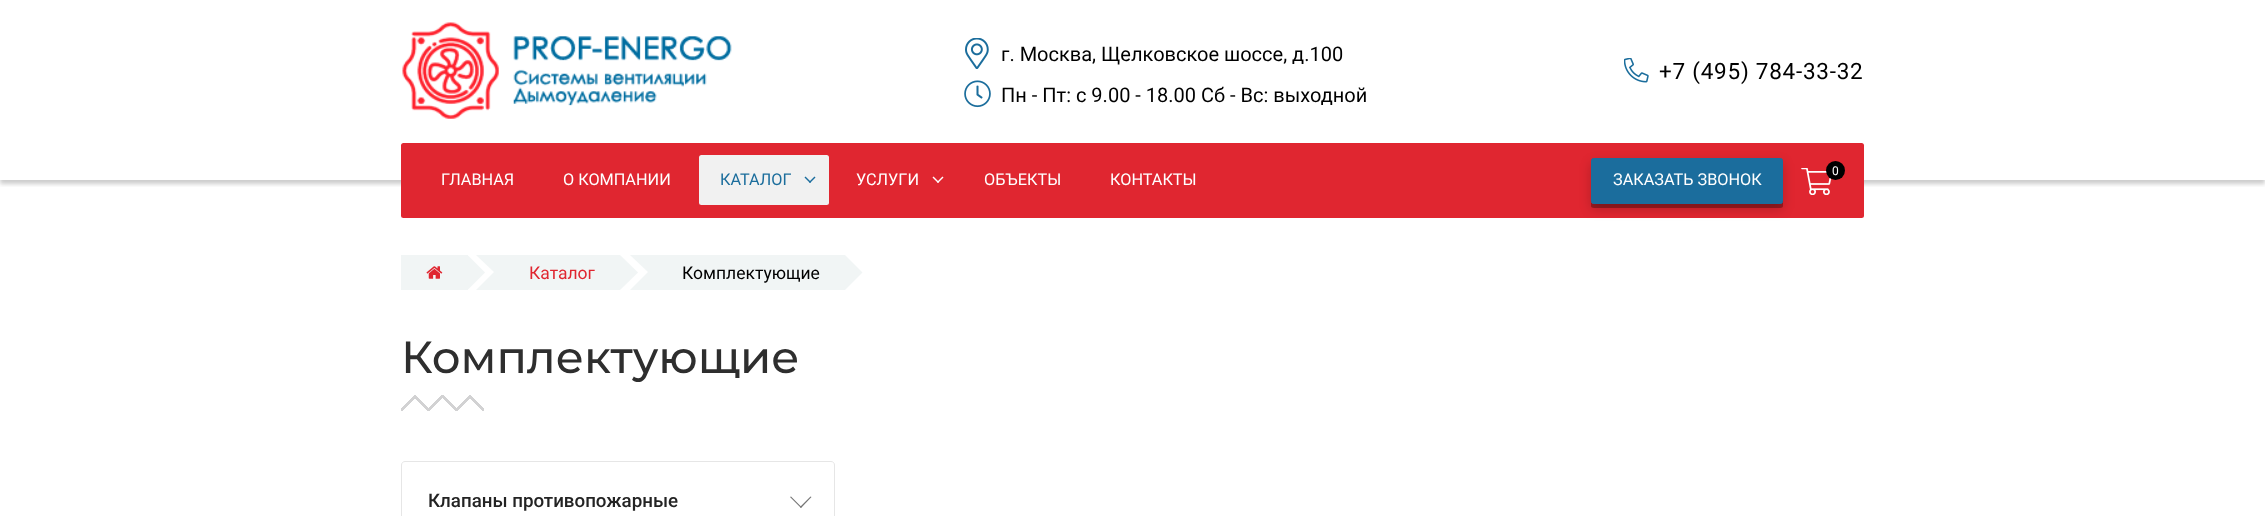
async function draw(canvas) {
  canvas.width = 2265
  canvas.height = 516
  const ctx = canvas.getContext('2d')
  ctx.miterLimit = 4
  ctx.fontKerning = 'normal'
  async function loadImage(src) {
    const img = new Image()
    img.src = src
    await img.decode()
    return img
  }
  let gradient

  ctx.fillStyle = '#fff'
  ctx.fillRect(0, 0, 2265, 516)
  ctx.save()
  ctx.beginPath()
  ctx.rect(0, 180, 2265, 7)
  ctx.clip()
  ctx.fillStyle = '#00000033'
  ctx.filter = 'blur(2px)'
  ctx.beginPath()
  ctx.rect(0, 4, 2265, 180)
  ctx.fill()
  ctx.filter = 'none'
  ctx.restore()
  ctx.drawImage(await loadImage('image0.png'), 402, 22, 330, 97)
  ctx.drawImage(await loadImage('image1.png'), 965, 38, 24, 31)
  ctx.font = '20px Roboto'
  ctx.fillStyle = '#000'
  ctx.fillText('г. Москва, Щелковское шоссе, д.100', 1001, 61)
  ctx.drawImage(await loadImage('image2.png'), 964, 80, 27, 28)
  ctx.fillText('Пн - Пт: c 9.00 - 18.00 Сб - Вс: выходной', 1001, 102)
  ctx.drawImage(await loadImage('image3.png'), 1624, 58, 25, 25)
  ctx.letterSpacing = '0.75px'
  ctx.font = '22.5px Roboto'
  ctx.fillText('+7 (495) 784-33-32', 1659, 79)
  ctx.fillStyle = '#e02630'
  ctx.beginPath()
  ctx.roundRect(401, 143, 1463, 75, 2.5)
  ctx.fill()
  ctx.drawImage(await loadImage('image4.png'), 1801, 168, 31, 27)
  ctx.fillStyle = '#000'
  ctx.beginPath()
  ctx.arc(1835.5, 170.5, 9.5, 0, 2 * Math.PI)
  ctx.fill()
  ctx.letterSpacing = '0px'
  ctx.font = '12px Roboto'
  ctx.fillStyle = '#fff'
  ctx.fillText('0', 1832, 175)
  ctx.font = '16.25px Roboto'
  ctx.fillText('ГЛАВНАЯ', 441, 185)
  ctx.fillText('О КОМПАНИИ', 563, 185)
  ctx.fillStyle = '#f1f1f1'
  ctx.beginPath()
  ctx.roundRect(699, 155, 130, 50, 2.5)
  ctx.fill()
  ctx.fillStyle = '#1b6d9c'
  ctx.fillText('КАТАЛОГ', 720, 185)
  ctx.fillStyle = '#1b6d9d'
  ctx.beginPath()
  ctx.moveTo(814.5, 176.5)
  ctx.lineTo(815.5, 177.5)
  ctx.lineTo(810, 183)
  ctx.lineTo(809, 182)
  ctx.closePath()
  ctx.fill()
  ctx.beginPath()
  ctx.moveTo(805.5, 176.5)
  ctx.lineTo(811, 182)
  ctx.lineTo(810, 183)
  ctx.lineTo(804.5, 177.5)
  ctx.closePath()
  ctx.fill()
  ctx.fillStyle = '#fff'
  ctx.fillText('УСЛУГИ', 856, 185)
  ctx.beginPath()
  ctx.moveTo(942.5, 176.5)
  ctx.lineTo(943.5, 177.5)
  ctx.lineTo(938, 183)
  ctx.lineTo(937, 182)
  ctx.closePath()
  ctx.fill()
  ctx.beginPath()
  ctx.moveTo(933.5, 176.5)
  ctx.lineTo(939, 182)
  ctx.lineTo(938, 183)
  ctx.lineTo(932.5, 177.5)
  ctx.closePath()
  ctx.fill()
  ctx.fillText('ОБЪЕКТЫ', 984, 185)
  ctx.fillText('КОНТАКТЫ', 1110, 185)
  ctx.fillStyle = '#00000033'
  ctx.filter = 'blur(6px)'
  ctx.beginPath()
  ctx.roundRect(1591, 163, 192, 46, 2.5)
  ctx.fill()
  ctx.filter = 'none'
  ctx.fillStyle = '#0000004d'
  ctx.beginPath()
  ctx.moveTo(1591, 162)
  ctx.lineTo(1591, 206)
  ctx.bezierCurveTo(1591, 207, 1592, 208, 1594, 208)
  ctx.lineTo(1780, 208)
  ctx.bezierCurveTo(1782, 208, 1783, 207, 1783, 206)
  ctx.lineTo(1783, 164)
  ctx.lineTo(1782, 162)
  ctx.lineTo(1782, 201)
  ctx.bezierCurveTo(1782, 203, 1781, 204, 1780, 204)
  ctx.lineTo(1594, 204)
  ctx.bezierCurveTo(1592, 204, 1591, 203, 1591, 201)
  ctx.closePath()
  ctx.fill()
  ctx.fillStyle = '#1b6d9d'
  ctx.beginPath()
  ctx.roundRect(1591.5, 158.5, 191, 45, 2)
  ctx.fill()
  ctx.strokeStyle = '#1b6d9d'
  ctx.stroke()
  ctx.fillStyle = '#fff'
  ctx.fillText('ЗАКАЗАТЬ ЗВОНОК', 1613, 185)
  ctx.fillStyle = '#f1f5f5'
  ctx.fillRect(401, 255, 67, 35)
  ctx.drawImage(await loadImage('image5.png'), 426, 266, 17, 13)
  ctx.beginPath()
  ctx.moveTo(450, 272.5)
  ctx.lineTo(467.5, 255)
  ctx.lineTo(485, 272.5)
  ctx.lineTo(467.5, 290)
  ctx.closePath()
  ctx.fill()
  ctx.fillRect(506, 255, 114, 35)
  ctx.beginPath()
  ctx.moveTo(476, 255)
  ctx.lineTo(524, 255)
  ctx.lineTo(506, 272)
  ctx.lineTo(494, 272)
  ctx.closePath()
  ctx.moveTo(524, 290)
  ctx.lineTo(476, 290)
  ctx.lineTo(494, 272)
  ctx.lineTo(506, 272)
  ctx.closePath()
  ctx.fill()
  ctx.font = '17.5px Roboto'
  ctx.fillStyle = '#e02630'
  ctx.fillText('Каталог', 529, 279)
  ctx.fillStyle = '#f1f5f5'
  ctx.beginPath()
  ctx.moveTo(602.5, 272.5)
  ctx.lineTo(620, 255)
  ctx.lineTo(638, 272.5)
  ctx.lineTo(620, 290)
  ctx.closePath()
  ctx.fill()
  ctx.fillRect(660, 255, 185, 35)
  ctx.beginPath()
  ctx.moveTo(630, 255)
  ctx.lineTo(678, 255)
  ctx.lineTo(660, 272)
  ctx.lineTo(648, 272)
  ctx.closePath()
  ctx.moveTo(678, 290)
  ctx.lineTo(630, 290)
  ctx.lineTo(648, 272)
  ctx.lineTo(660, 272)
  ctx.closePath()
  ctx.fill()
  ctx.fillStyle = '#000'
  ctx.fillText('Комплектующие', 682, 279)
  ctx.fillStyle = '#f1f5f5'
  ctx.beginPath()
  ctx.moveTo(827.5, 272.5)
  ctx.lineTo(845, 255)
  ctx.lineTo(862.5, 272.5)
  ctx.lineTo(845, 290)
  ctx.closePath()
  ctx.fill()
  ctx.font = '500 45px Montserrat'
  ctx.fillStyle = '#2e2e2e'
  ctx.fillText('Комплектующие', 401, 373)
  gradient = ctx.createLinearGradient(404, 414, 426, 392)
  gradient.addColorStop(0.61, '#fff')
  gradient.addColorStop(0.61, '#d2d2d3')
  ctx.fillStyle = gradient
  ctx.fillRect(414, 397, 15, 14)
  gradient = ctx.createLinearGradient(432, 414, 453, 392)
  gradient.addColorStop(0.61, '#fff')
  gradient.addColorStop(0.61, '#d2d2d3')
  ctx.fillStyle = gradient
  ctx.fillRect(441, 396, 15, 15)
  gradient = ctx.createLinearGradient(459, 414, 481, 392)
  gradient.addColorStop(0.61, '#fff')
  gradient.addColorStop(0.61, '#d2d2d3')
  ctx.fillStyle = gradient
  ctx.fillRect(469, 397, 15, 14)
  gradient = ctx.createLinearGradient(426, 414, 404, 392)
  gradient.addColorStop(0.61, '#d2d2d300')
  gradient.addColorStop(0.61, '#d2d2d3')
  ctx.fillStyle = gradient
  ctx.fillRect(401, 395, 16, 16)
  gradient = ctx.createLinearGradient(453, 414, 432, 392)
  gradient.addColorStop(0.61, '#d2d2d300')
  gradient.addColorStop(0.61, '#d2d2d3')
  ctx.fillStyle = gradient
  ctx.fillRect(429, 395, 15, 16)
  gradient = ctx.createLinearGradient(481, 414, 459, 392)
  gradient.addColorStop(0.61, '#d2d2d300')
  gradient.addColorStop(0.61, '#d2d2d3')
  ctx.fillStyle = gradient
  ctx.fillRect(456, 395, 16, 16)
  gradient = ctx.createLinearGradient(404, 410, 426, 388)
  gradient.addColorStop(0.61, '#ffffff00')
  gradient.addColorStop(0.61, '#fff')
  ctx.fillStyle = gradient
  ctx.fillRect(416, 395, 13, 13)
  gradient = ctx.createLinearGradient(432, 410, 453, 388)
  gradient.addColorStop(0.61, '#ffffff00')
  gradient.addColorStop(0.61, '#fff')
  ctx.fillStyle = gradient
  ctx.fillRect(445, 396, 11, 11)
  gradient = ctx.createLinearGradient(459, 410, 481, 388)
  gradient.addColorStop(0.61, '#ffffff00')
  gradient.addColorStop(0.61, '#fff')
  ctx.fillStyle = gradient
  ctx.fillRect(471, 395, 13, 13)
  gradient = ctx.createLinearGradient(426, 410, 404, 388)
  gradient.addColorStop(0.61, '#ffffff00')
  gradient.addColorStop(0.61, '#fff')
  ctx.fillStyle = gradient
  ctx.fillRect(401, 395, 13, 13)
  gradient = ctx.createLinearGradient(453, 410, 432, 388)
  gradient.addColorStop(0.61, '#ffffff00')
  gradient.addColorStop(0.61, '#fff')
  ctx.fillStyle = gradient
  ctx.fillRect(429, 395, 12, 12)
  gradient = ctx.createLinearGradient(481, 410, 459, 388)
  gradient.addColorStop(0.61, '#ffffff00')
  gradient.addColorStop(0.61, '#fff')
  ctx.fillStyle = gradient
  ctx.fillRect(456, 395, 13, 13)
  ctx.beginPath()
  ctx.moveTo(405, 461.5)
  ctx.lineTo(831, 461.5)
  ctx.bezierCurveTo(833, 461.5, 834.5, 463, 834.5, 465)
  ctx.lineTo(834.5, 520.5)
  ctx.lineTo(401.5, 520.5)
  ctx.lineTo(401.5, 465)
  ctx.bezierCurveTo(401.5, 463, 403, 461.5, 405, 461.5)
  ctx.closePath()
  ctx.strokeStyle = '#e6e6e6'
  ctx.stroke()
  ctx.font = '500 18.75px Roboto'
  ctx.fillStyle = '#232323'
  ctx.fillText('Клапаны противопожарные', 428, 507)
  ctx.fillStyle = '#747474'
  ctx.beginPath()
  ctx.moveTo(810.5, 496.5)
  ctx.lineTo(811.5, 497)
  ctx.lineTo(801, 508)
  ctx.lineTo(800, 507)
  ctx.closePath()
  ctx.fill()
  ctx.beginPath()
  ctx.moveTo(791, 496.5)
  ctx.lineTo(801.5, 507)
  ctx.lineTo(801, 508)
  ctx.lineTo(790, 497)
  ctx.closePath()
  ctx.fill()
}

draw(document.querySelector('canvas'))
